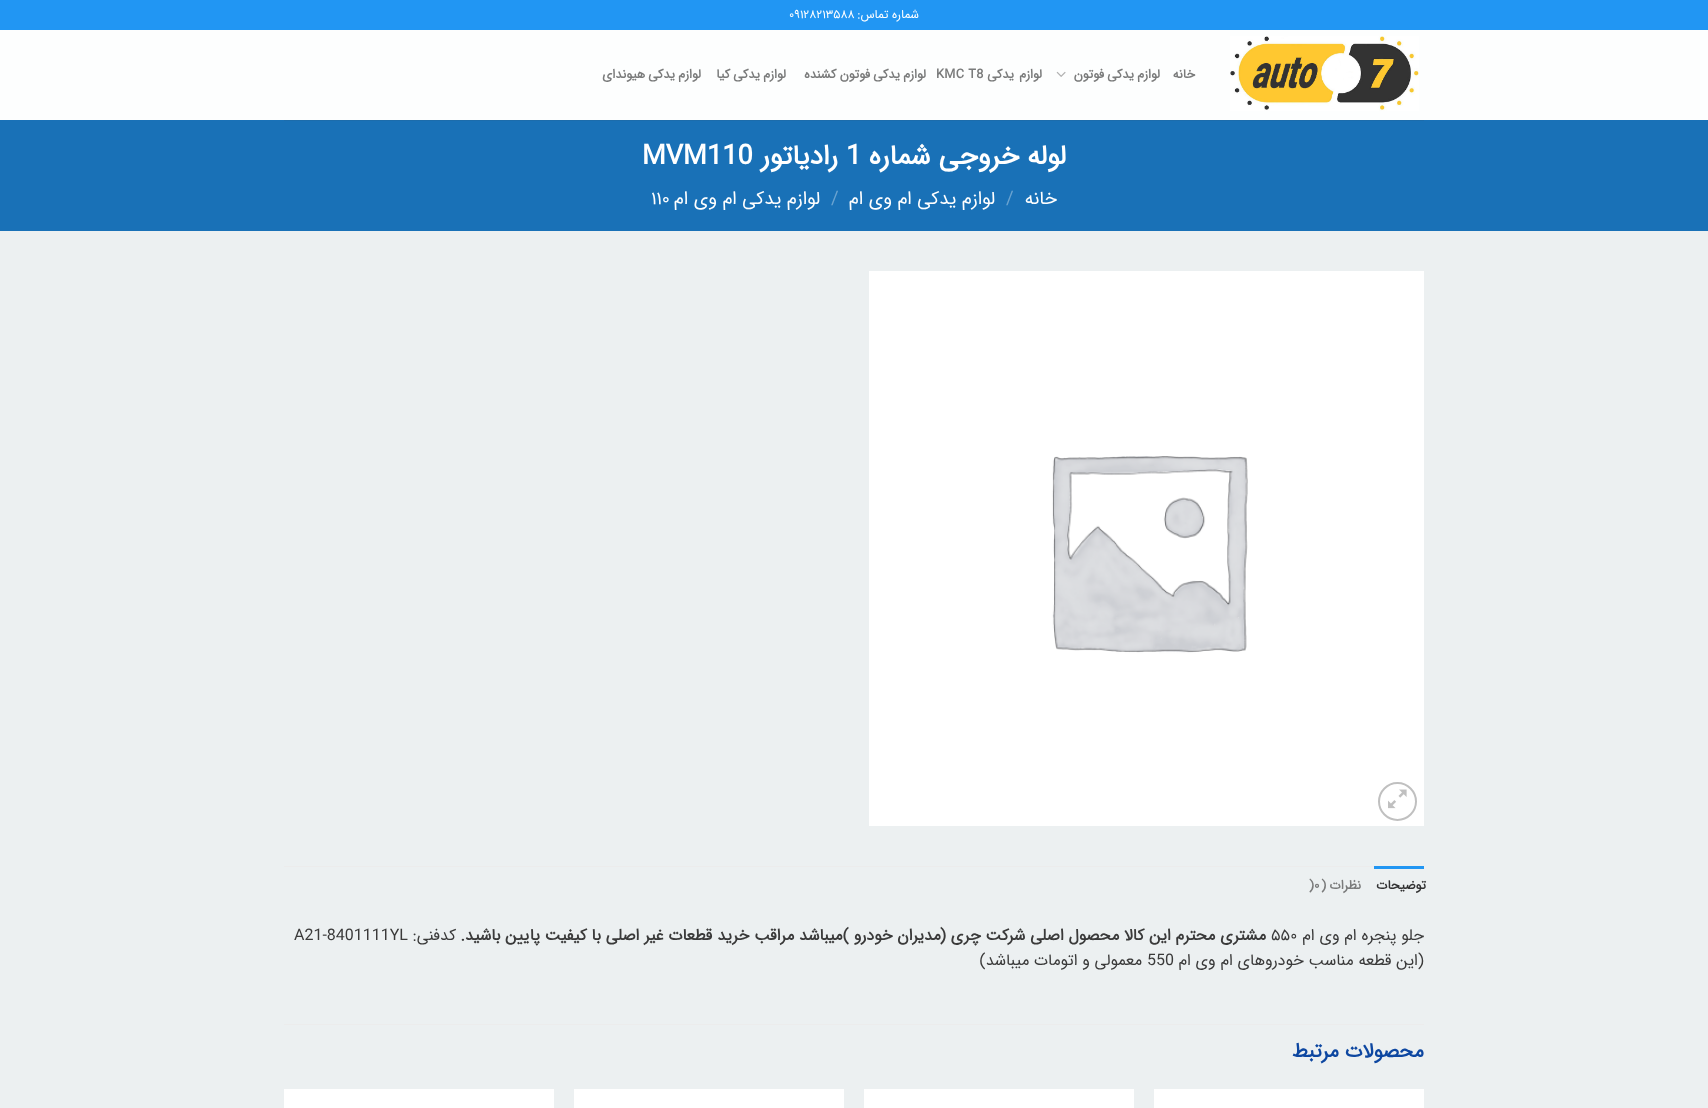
async function draw(canvas) {
  canvas.width = 1708
  canvas.height = 1108
  const ctx = canvas.getContext('2d')
  ctx.miterLimit = 4
  ctx.fontKerning = 'normal'
  async function loadImage(src) {
    const img = new Image()
    img.src = src
    await img.decode()
    return img
  }

  ctx.fillStyle = '#ecf0f1'
  ctx.fillRect(0, 0, 1708, 1108)
  ctx.fillStyle = '#2196f3'
  ctx.fillRect(0, 0, 1708, 30)
  ctx.direction = 'rtl'
  ctx.font = '12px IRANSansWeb'
  ctx.fillStyle = '#fff'
  ctx.fillText('شماره تماس:', 919, 18)
  ctx.direction = 'ltr'
  ctx.fillText('۰۹۱۲۸۲۱۳۵۸۸', 789, 18)
  ctx.fillStyle = '#fdfefe'
  ctx.fillRect(0, 30, 1708, 90)
  ctx.drawImage(await loadImage('image0.png'), 1230, 36, 189, 75)
  ctx.letterSpacing = '0.25px'
  ctx.direction = 'rtl'
  ctx.font = 'bold 12.75px IRANSansWeb'
  ctx.fillStyle = '#7a7b7b'
  ctx.fillText('خانه', 1195, 78)
  ctx.wordSpacing = '-1px'
  ctx.fillText('لوازم یدکی فوتون', 1160, 78)
  ctx.drawImage(await loadImage('image1.png'), 1056, 71, 10, 6)
  ctx.wordSpacing = '1px'
  ctx.fillText('لوازم یدکی', 1042, 78)
  ctx.wordSpacing = '0px'
  ctx.direction = 'ltr'
  ctx.fillText('KMC T8', 936, 78)
  ctx.wordSpacing = '-1px'
  ctx.direction = 'rtl'
  ctx.fillText('لوازم یدکی فوتون کشنده', 926, 78)
  ctx.fillText('لوازم یدکی کیا', 786, 78)
  ctx.fillText('لوازم یدکی هیوندای', 701, 78)
  ctx.fillStyle = '#1971b7'
  ctx.fillRect(0, 120, 1708, 111)
  ctx.fillStyle = '#1c6cab'
  ctx.fillRect(284, 120, 1140, 1)
  ctx.letterSpacing = '0px'
  ctx.wordSpacing = '0px'
  ctx.font = 'bold 27.25px IRANSansWeb'
  ctx.fillStyle = '#fff'
  ctx.fillText('لوله خروجی شماره', 1066, 164)
  ctx.direction = 'ltr'
  ctx.fillText('1', 846, 164)
  ctx.direction = 'rtl'
  ctx.fillText('رادیاتور', 838, 164)
  ctx.direction = 'ltr'
  ctx.fillText('MVM110', 642, 164)
  ctx.direction = 'rtl'
  ctx.font = '18.5px IRANSansWeb'
  ctx.fillText('خانه', 1057, 204)
  ctx.direction = 'ltr'
  ctx.fillStyle = '#6aa3d0'
  ctx.fillText('/', 1006, 204)
  ctx.direction = 'rtl'
  ctx.fillStyle = '#fff'
  ctx.fillText('لوازم یدکی ام وی ام', 995, 204)
  ctx.direction = 'ltr'
  ctx.fillStyle = '#6aa3d0'
  ctx.fillText('/', 831, 204)
  ctx.direction = 'rtl'
  ctx.fillStyle = '#fff'
  ctx.fillText('لوازم یدکی ام وی ام', 820, 204)
  ctx.direction = 'ltr'
  ctx.fillText('۱۱۰', 651, 204)
  ctx.drawImage(await loadImage('image2.png'), 869, 271, 555, 555)
  ctx.beginPath()
  ctx.arc(1397.5, 801.5, 18.5, 0, 2 * Math.PI)
  ctx.strokeStyle = '#c0c0c0'
  ctx.lineWidth = 2
  ctx.stroke()
  ctx.drawImage(await loadImage('image3.png'), 1388, 789, 19, 20)
  ctx.fillStyle = '#ececec'
  ctx.fillRect(284, 866, 1090, 1)
  ctx.fillStyle = '#2196f3'
  ctx.fillRect(1374, 866, 50, 3)
  ctx.letterSpacing = '0.25px'
  ctx.direction = 'rtl'
  ctx.font = 'bold 12.75px IRANSansWeb'
  ctx.fillStyle = '#323233'
  ctx.fillText('توضیحات', 1426, 889)
  ctx.wordSpacing = '-1px'
  ctx.fillStyle = '#7a7b7b'
  ctx.fillText('نظرات (', 1361, 889)
  ctx.wordSpacing = '0px'
  ctx.direction = 'ltr'
  ctx.fillText(')۰', 1309, 889)
  ctx.letterSpacing = '0px'
  ctx.direction = 'rtl'
  ctx.font = '16px IRANSansWeb'
  ctx.fillStyle = '#3a3a3a'
  ctx.fillText('جلو پنجره ام وی ام', 1424, 940)
  ctx.direction = 'ltr'
  ctx.fillText('۵۵۰', 1271, 940)
  ctx.direction = 'rtl'
  ctx.font = 'bold 16px IRANSansWeb'
  ctx.fillText('مشتری محترم این کالا محصول اصلی شرکت چری (مدیران خودرو )میباشد مراقب خرید قطعات غیر اصلی با کیفیت پایین باشید.', 1266, 940)
  ctx.font = '16px IRANSansWeb'
  ctx.fillText('کدفنی:', 456, 940)
  ctx.direction = 'ltr'
  ctx.fillText('A21-8401111YL', 294, 940)
  ctx.direction = 'rtl'
  ctx.fillText('(این قطعه مناسب خودروهای ام وی ام', 1424, 965)
  ctx.direction = 'ltr'
  ctx.fillText('550', 1147, 965)
  ctx.direction = 'rtl'
  ctx.fillText('معمولی و اتومات میباشد)', 1142, 965)
  ctx.fillStyle = '#ececec'
  ctx.fillRect(284, 1024, 1140, 1)
  ctx.font = 'bold 20px IRANSansWeb'
  ctx.fillStyle = '#0d47a1'
  ctx.fillText('محصولات مرتبط', 1424, 1057)
  ctx.fillStyle = '#fff'
  ctx.fillRect(1154, 1089, 270, 19)
  ctx.fillRect(864, 1089, 270, 19)
  ctx.fillRect(574, 1089, 270, 19)
  ctx.fillRect(284, 1089, 270, 19)
}

draw(document.querySelector('canvas'))
